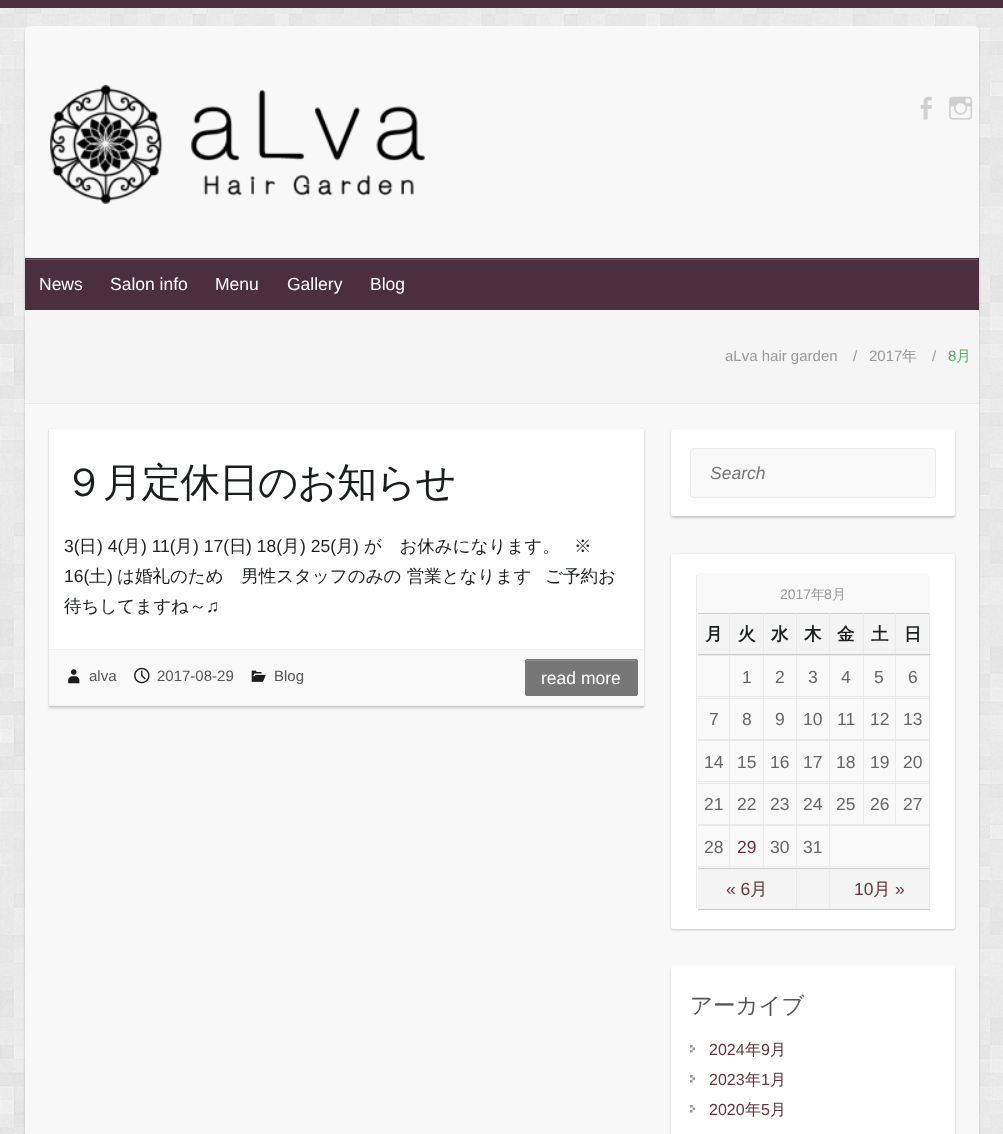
async function draw(canvas) {
  canvas.width = 1003
  canvas.height = 1134
  const ctx = canvas.getContext('2d')
  ctx.miterLimit = 4
  ctx.fontKerning = 'normal'
  async function loadImage(src) {
    const img = new Image()
    img.src = src
    await img.decode()
    return img
  }

  ctx.fillStyle = '#fff'
  ctx.fillRect(0, 0, 1003, 1134)
  ctx.drawImage(await loadImage('image0.png'), 0, 8, 1003, 1126)
  ctx.fillStyle = '#4c2f3e'
  ctx.fillRect(0, 0, 1003, 8)
  ctx.fillStyle = '#00000033'
  ctx.filter = 'blur(1px)'
  ctx.beginPath()
  ctx.roundRect(25, 28, 954, 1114, 5)
  ctx.fill()
  ctx.filter = 'none'
  ctx.fillStyle = '#f8f8f8'
  ctx.beginPath()
  ctx.roundRect(25, 26, 954, 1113, 5)
  ctx.fill()
  ctx.drawImage(await loadImage('image1.png'), 50, 85, 375, 119)
  ctx.drawImage(await loadImage('image2.png'), 920, 96, 12, 24)
  ctx.drawImage(await loadImage('image3.png'), 949, 96, 24, 24)
  ctx.fillStyle = '#4c2f3e'
  ctx.fillRect(25, 258, 954, 52)
  ctx.fillStyle = '#705965'
  ctx.fillRect(26, 259, 952, 1)
  ctx.font = '17.5px Liberation Sans'
  ctx.fillStyle = '#fff'
  ctx.fillText('News', 39, 290)
  ctx.fillText('Salon info', 110, 290)
  ctx.fillText('Menu', 215, 290)
  ctx.fillText('Gallery', 287, 290)
  ctx.fillText('Blog', 370, 290)
  ctx.fillStyle = '#f5f5f5'
  ctx.fillRect(25, 310, 954, 93)
  ctx.fillStyle = '#eaeaea'
  ctx.fillRect(25, 403, 954, 1)
  ctx.font = '15px Liberation Sans'
  ctx.fillStyle = '#999'
  ctx.fillText('aLva hair garden', 725, 361)
  ctx.fillText('/', 853, 361)
  ctx.fillText('2017', 869, 361)
  ctx.font = '500 15px WenQuanYi Zen Hei'
  ctx.fillText('年', 902, 361)
  ctx.font = '15px Liberation Sans'
  ctx.fillText('/', 932, 361)
  ctx.fillStyle = '#57ad68'
  ctx.fillText('8', 948, 361)
  ctx.font = '500 15px WenQuanYi Zen Hei'
  ctx.fillText('月', 956, 361)
  ctx.fillStyle = '#00000033'
  ctx.filter = 'blur(1px)'
  ctx.beginPath()
  ctx.rect(49, 430, 595, 278)
  ctx.fill()
  ctx.filter = 'none'
  ctx.fillStyle = '#fff'
  ctx.fillRect(49, 429, 595, 220)
  ctx.letterSpacing = '-1.25px'
  ctx.font = '500 40px WenQuanYi Zen Hei'
  ctx.fillStyle = '#1b1e1f'
  ctx.fillText('９月定休日のお知らせ', 64, 496)
  ctx.letterSpacing = '0px'
  ctx.font = '17.5px Liberation Sans'
  ctx.fillText('3(', 64, 552)
  ctx.font = '500 17.5px WenQuanYi Zen Hei'
  ctx.fillText('日', 79, 552)
  ctx.font = '17.5px Liberation Sans'
  ctx.fillText(') 4(', 97, 552)
  ctx.font = '500 17.5px WenQuanYi Zen Hei'
  ctx.fillText('月', 123, 552)
  ctx.font = '17.5px Liberation Sans'
  ctx.fillText(') 11(', 141, 552)
  ctx.font = '500 17.5px WenQuanYi Zen Hei'
  ctx.fillText('月', 175, 552)
  ctx.font = '17.5px Liberation Sans'
  ctx.fillText(') 17(', 193, 552)
  ctx.font = '500 17.5px WenQuanYi Zen Hei'
  ctx.fillText('日', 229, 552)
  ctx.font = '17.5px Liberation Sans'
  ctx.fillText(') 18(', 246, 552)
  ctx.font = '500 17.5px WenQuanYi Zen Hei'
  ctx.fillText('月', 282, 552)
  ctx.font = '17.5px Liberation Sans'
  ctx.fillText(') 25(', 300, 552)
  ctx.font = '500 17.5px WenQuanYi Zen Hei'
  ctx.fillText('月', 336, 552)
  ctx.font = '17.5px Liberation Sans'
  ctx.fillText(')', 353, 552)
  ctx.font = '500 17.5px WenQuanYi Zen Hei'
  ctx.fillText('が　お休みになります。', 364, 552)
  ctx.fillText('※', 574, 552)
  ctx.font = '17.5px Liberation Sans'
  ctx.fillText('16(', 64, 582)
  ctx.font = '500 17.5px WenQuanYi Zen Hei'
  ctx.fillText('土', 89, 582)
  ctx.font = '17.5px Liberation Sans'
  ctx.fillText(')', 107, 582)
  ctx.font = '500 17.5px WenQuanYi Zen Hei'
  ctx.fillText('は婚礼のため　男性スタッフのみの 営業となります', 117, 582)
  ctx.fillText('ご予約お', 545, 582)
  ctx.fillText('待ちしてますね～', 64, 612)
  ctx.font = '17.5px Liberation Sans'
  ctx.fillText('♫', 206, 612)
  ctx.fillStyle = '#f9f9f9'
  ctx.fillRect(49, 650, 595, 55)
  ctx.fillStyle = '#f0f0f0'
  ctx.fillRect(49, 649, 595, 1)
  ctx.fillRect(49, 705, 595, 1)
  ctx.drawImage(await loadImage('image4.png'), 68, 669, 12, 15)
  ctx.font = '15px Liberation Sans'
  ctx.fillStyle = '#555'
  ctx.fillText('alva', 89, 681)
  ctx.drawImage(await loadImage('image5.png'), 134, 667, 16, 17)
  ctx.fillText('2017-08-29', 157, 681)
  ctx.drawImage(await loadImage('image6.png'), 251, 670, 15, 12)
  ctx.fillText('Blog', 274, 681)
  ctx.fillStyle = '#777'
  ctx.beginPath()
  ctx.roundRect(525, 659, 113, 37, 2.5)
  ctx.fill()
  ctx.fillStyle = '#ffffff33'
  ctx.beginPath()
  ctx.moveTo(528, 661)
  ctx.lineTo(635, 661)
  ctx.lineTo(636, 662)
  ctx.lineTo(635, 660)
  ctx.lineTo(545, 660)
  ctx.bezierCurveTo(541, 660, 526, 655, 526, 662)
  ctx.closePath()
  ctx.fill()
  ctx.beginPath()
  ctx.roundRect(525.5, 659.5, 112, 36, 2)
  ctx.strokeStyle = '#777'
  ctx.stroke()
  ctx.font = '17.5px Liberation Sans'
  ctx.fillStyle = '#fff'
  ctx.fillText('read more', 541, 684)
  ctx.fillStyle = '#00000033'
  ctx.filter = 'blur(1px)'
  ctx.beginPath()
  ctx.roundRect(671, 430, 284, 88, 2.5)
  ctx.fill()
  ctx.filter = 'none'
  ctx.fillStyle = '#fff'
  ctx.beginPath()
  ctx.roundRect(671, 429, 284, 87, 2.5)
  ctx.fill()
  ctx.fillStyle = '#f9f9f9'
  ctx.beginPath()
  ctx.roundRect(690.5, 448.5, 245, 49, 3.5)
  ctx.fill()
  ctx.strokeStyle = '#eaeaea'
  ctx.stroke()
  ctx.font = 'italic 17.5px Liberation Sans'
  ctx.fillStyle = '#757575'
  ctx.fillText('Search', 710, 479)
  ctx.fillStyle = '#00000033'
  ctx.filter = 'blur(1px)'
  ctx.beginPath()
  ctx.roundRect(671, 555, 284, 375, 2.5)
  ctx.fill()
  ctx.filter = 'none'
  ctx.fillStyle = '#fff'
  ctx.beginPath()
  ctx.roundRect(671, 554, 284, 375, 2.5)
  ctx.fill()
  ctx.fillStyle = '#f9f9f9'
  ctx.beginPath()
  ctx.roundRect(696, 573, 234, 337, 5)
  ctx.fill()
  ctx.fillStyle = '#eaeaea'
  ctx.fillRect(696, 575, 1, 333)
  ctx.font = '14px Liberation Sans'
  ctx.fillStyle = '#999'
  ctx.fillText('2017', 780, 599)
  ctx.font = '500 14px WenQuanYi Zen Hei'
  ctx.fillText('年', 811, 599)
  ctx.font = '14px Liberation Sans'
  ctx.fillText('8', 824, 599)
  ctx.font = '500 14px WenQuanYi Zen Hei'
  ctx.fillText('月', 832, 599)
  ctx.fillStyle = '#f4f4f4'
  ctx.fillRect(698, 614, 31, 40)
  ctx.fillStyle = '#ccc'
  ctx.fillRect(698, 613, 232, 1)
  ctx.fillStyle = '#eaeaea'
  ctx.fillRect(729, 613, 1, 42)
  ctx.fillStyle = '#ccc'
  ctx.fillRect(698, 654, 32, 1)
  ctx.font = 'bold 17.5px WenQuanYi Zen Hei'
  ctx.fillStyle = '#1b1e1f'
  ctx.fillText('月', 705, 640)
  ctx.fillStyle = '#f4f4f4'
  ctx.fillRect(730, 614, 33, 40)
  ctx.fillStyle = '#eaeaea'
  ctx.fillRect(763, 613, 1, 42)
  ctx.fillStyle = '#ccc'
  ctx.fillRect(730, 654, 34, 1)
  ctx.fillStyle = '#1b1e1f'
  ctx.fillText('火', 738, 640)
  ctx.fillStyle = '#f4f4f4'
  ctx.fillRect(764, 614, 65, 40)
  ctx.fillStyle = '#eaeaea'
  ctx.fillRect(796, 613, 1, 42)
  ctx.fillStyle = '#ccc'
  ctx.fillRect(764, 654, 34, 1)
  ctx.fillStyle = '#1b1e1f'
  ctx.fillText('水', 771, 640)
  ctx.fillStyle = '#eaeaea'
  ctx.fillRect(829, 613, 1, 42)
  ctx.fillStyle = '#ccc'
  ctx.fillRect(798, 654, 32, 1)
  ctx.fillStyle = '#1b1e1f'
  ctx.fillText('木', 804, 640)
  ctx.fillStyle = '#f4f4f4'
  ctx.fillRect(830, 614, 33, 40)
  ctx.fillStyle = '#eaeaea'
  ctx.fillRect(863, 613, 1, 42)
  ctx.fillStyle = '#ccc'
  ctx.fillRect(830, 654, 34, 1)
  ctx.fillStyle = '#1b1e1f'
  ctx.fillText('金', 837, 640)
  ctx.fillStyle = '#f4f4f4'
  ctx.fillRect(864, 614, 31, 40)
  ctx.fillStyle = '#eaeaea'
  ctx.fillRect(895, 613, 1, 42)
  ctx.fillStyle = '#ccc'
  ctx.fillRect(864, 654, 32, 1)
  ctx.fillStyle = '#1b1e1f'
  ctx.fillText('土', 871, 640)
  ctx.fillStyle = '#f4f4f4'
  ctx.fillRect(896, 614, 33, 40)
  ctx.fillStyle = '#eaeaea'
  ctx.fillRect(929, 613, 1, 42)
  ctx.fillStyle = '#ccc'
  ctx.fillRect(896, 654, 34, 1)
  ctx.fillStyle = '#1b1e1f'
  ctx.fillText('日', 904, 640)
  ctx.fillStyle = '#eaeaea'
  ctx.fillRect(698, 655, 232, 1)
  ctx.fillRect(729, 655, 1, 43)
  ctx.fillRect(698, 696, 32, 1)
  ctx.fillRect(763, 655, 1, 43)
  ctx.fillRect(730, 696, 34, 1)
  ctx.font = '17.5px Liberation Sans'
  ctx.fillStyle = '#666'
  ctx.fillText('1', 742, 683)
  ctx.fillStyle = '#eaeaea'
  ctx.fillRect(796, 655, 1, 43)
  ctx.fillRect(764, 696, 34, 1)
  ctx.fillStyle = '#666'
  ctx.fillText('2', 775, 683)
  ctx.fillStyle = '#eaeaea'
  ctx.fillRect(829, 655, 1, 43)
  ctx.fillRect(798, 696, 32, 1)
  ctx.fillStyle = '#666'
  ctx.fillText('3', 808, 683)
  ctx.fillStyle = '#eaeaea'
  ctx.fillRect(863, 655, 1, 43)
  ctx.fillRect(830, 696, 34, 1)
  ctx.fillStyle = '#666'
  ctx.fillText('4', 841, 683)
  ctx.fillStyle = '#eaeaea'
  ctx.fillRect(895, 655, 1, 43)
  ctx.fillRect(864, 696, 32, 1)
  ctx.fillStyle = '#666'
  ctx.fillText('5', 874, 683)
  ctx.fillStyle = '#eaeaea'
  ctx.fillRect(929, 655, 1, 43)
  ctx.fillRect(896, 696, 34, 1)
  ctx.fillStyle = '#666'
  ctx.fillText('6', 908, 683)
  ctx.fillStyle = '#eaeaea'
  ctx.fillRect(698, 698, 232, 1)
  ctx.fillRect(729, 698, 1, 42)
  ctx.fillRect(698, 739, 32, 2)
  ctx.fillStyle = '#666'
  ctx.fillText('7', 709, 725)
  ctx.fillStyle = '#eaeaea'
  ctx.fillRect(763, 698, 1, 42)
  ctx.fillRect(730, 739, 34, 2)
  ctx.fillStyle = '#666'
  ctx.fillText('8', 742, 725)
  ctx.fillStyle = '#eaeaea'
  ctx.fillRect(796, 698, 1, 42)
  ctx.fillRect(764, 739, 34, 2)
  ctx.fillStyle = '#666'
  ctx.fillText('9', 775, 725)
  ctx.fillStyle = '#eaeaea'
  ctx.fillRect(829, 698, 1, 42)
  ctx.fillRect(798, 739, 32, 2)
  ctx.fillStyle = '#666'
  ctx.fillText('10', 803, 725)
  ctx.fillStyle = '#eaeaea'
  ctx.fillRect(863, 698, 1, 42)
  ctx.fillRect(830, 739, 34, 2)
  ctx.fillStyle = '#666'
  ctx.fillText('11', 837, 725)
  ctx.fillStyle = '#eaeaea'
  ctx.fillRect(895, 698, 1, 42)
  ctx.fillRect(864, 739, 32, 2)
  ctx.fillStyle = '#666'
  ctx.fillText('12', 870, 725)
  ctx.fillStyle = '#eaeaea'
  ctx.fillRect(929, 698, 1, 42)
  ctx.fillRect(896, 739, 34, 2)
  ctx.fillStyle = '#666'
  ctx.fillText('13', 903, 725)
  ctx.fillStyle = '#eaeaea'
  ctx.fillRect(729, 740, 1, 43)
  ctx.fillRect(698, 781, 32, 1)
  ctx.fillStyle = '#666'
  ctx.fillText('14', 704, 768)
  ctx.fillStyle = '#eaeaea'
  ctx.fillRect(763, 740, 1, 43)
  ctx.fillRect(730, 781, 34, 1)
  ctx.fillStyle = '#666'
  ctx.fillText('15', 737, 768)
  ctx.fillStyle = '#eaeaea'
  ctx.fillRect(796, 740, 1, 43)
  ctx.fillRect(764, 781, 34, 1)
  ctx.fillStyle = '#666'
  ctx.fillText('16', 770, 768)
  ctx.fillStyle = '#eaeaea'
  ctx.fillRect(829, 740, 1, 43)
  ctx.fillRect(798, 781, 32, 1)
  ctx.fillStyle = '#666'
  ctx.fillText('17', 803, 768)
  ctx.fillStyle = '#eaeaea'
  ctx.fillRect(863, 740, 1, 43)
  ctx.fillRect(830, 781, 34, 1)
  ctx.fillStyle = '#666'
  ctx.fillText('18', 836, 768)
  ctx.fillStyle = '#eaeaea'
  ctx.fillRect(895, 740, 1, 43)
  ctx.fillRect(864, 781, 32, 1)
  ctx.fillStyle = '#666'
  ctx.fillText('19', 870, 768)
  ctx.fillStyle = '#eaeaea'
  ctx.fillRect(929, 740, 1, 43)
  ctx.fillRect(896, 781, 34, 1)
  ctx.fillStyle = '#666'
  ctx.fillText('20', 903, 768)
  ctx.fillStyle = '#eaeaea'
  ctx.fillRect(698, 783, 232, 1)
  ctx.fillRect(729, 783, 1, 42)
  ctx.fillRect(698, 824, 32, 2)
  ctx.fillStyle = '#666'
  ctx.fillText('21', 704, 810)
  ctx.fillStyle = '#eaeaea'
  ctx.fillRect(763, 783, 1, 42)
  ctx.fillRect(730, 824, 34, 2)
  ctx.fillStyle = '#666'
  ctx.fillText('22', 737, 810)
  ctx.fillStyle = '#eaeaea'
  ctx.fillRect(796, 783, 1, 42)
  ctx.fillRect(764, 824, 34, 2)
  ctx.fillStyle = '#666'
  ctx.fillText('23', 770, 810)
  ctx.fillStyle = '#eaeaea'
  ctx.fillRect(829, 783, 1, 42)
  ctx.fillRect(798, 824, 32, 2)
  ctx.fillStyle = '#666'
  ctx.fillText('24', 803, 810)
  ctx.fillStyle = '#eaeaea'
  ctx.fillRect(863, 783, 1, 42)
  ctx.fillRect(830, 824, 34, 1)
  ctx.fillStyle = '#666'
  ctx.fillText('25', 836, 810)
  ctx.fillStyle = '#eaeaea'
  ctx.fillRect(895, 783, 1, 42)
  ctx.fillRect(864, 824, 32, 1)
  ctx.fillStyle = '#666'
  ctx.fillText('26', 870, 810)
  ctx.fillStyle = '#eaeaea'
  ctx.fillRect(929, 783, 1, 42)
  ctx.fillRect(896, 824, 34, 1)
  ctx.fillStyle = '#666'
  ctx.fillText('27', 903, 810)
  ctx.fillStyle = '#eaeaea'
  ctx.fillRect(729, 825, 1, 43)
  ctx.fillRect(698, 866, 32, 1)
  ctx.fillStyle = '#666'
  ctx.fillText('28', 704, 853)
  ctx.fillStyle = '#eaeaea'
  ctx.fillRect(763, 825, 1, 43)
  ctx.fillRect(730, 866, 34, 1)
  ctx.fillStyle = '#66333e'
  ctx.fillText('29', 737, 853)
  ctx.fillStyle = '#eaeaea'
  ctx.fillRect(796, 825, 1, 43)
  ctx.fillRect(764, 866, 34, 1)
  ctx.fillStyle = '#666'
  ctx.fillText('30', 770, 853)
  ctx.fillStyle = '#eaeaea'
  ctx.fillRect(829, 825, 1, 43)
  ctx.fillRect(798, 866, 32, 1)
  ctx.fillStyle = '#666'
  ctx.fillText('31', 803, 853)
  ctx.fillStyle = '#eaeaea'
  ctx.fillRect(830, 825, 100, 1)
  ctx.fillRect(929, 825, 1, 43)
  ctx.fillRect(830, 866, 100, 1)
  ctx.fillStyle = '#f4f4f4'
  ctx.fillRect(698, 869, 131, 40)
  ctx.fillStyle = '#ccc'
  ctx.fillRect(698, 868, 232, 1)
  ctx.fillStyle = '#eaeaea'
  ctx.fillRect(796, 868, 1, 42)
  ctx.fillStyle = '#ccc'
  ctx.fillRect(698, 909, 100, 1)
  ctx.fillStyle = '#66333e'
  ctx.fillText('« 6', 726, 895)
  ctx.font = '500 17.5px WenQuanYi Zen Hei'
  ctx.fillText('月', 750, 895)
  ctx.fillStyle = '#eaeaea'
  ctx.fillRect(829, 868, 1, 42)
  ctx.fillStyle = '#ccc'
  ctx.fillRect(798, 909, 32, 1)
  ctx.fillStyle = '#f4f4f4'
  ctx.fillRect(830, 869, 99, 40)
  ctx.fillStyle = '#eaeaea'
  ctx.fillRect(929, 868, 1, 42)
  ctx.fillStyle = '#ccc'
  ctx.fillRect(830, 909, 100, 1)
  ctx.font = '17.5px Liberation Sans'
  ctx.fillStyle = '#66333e'
  ctx.fillText('10', 854, 895)
  ctx.font = '500 17.5px WenQuanYi Zen Hei'
  ctx.fillText('月', 873, 895)
  ctx.font = '17.5px Liberation Sans'
  ctx.fillText('»', 895, 895)
  ctx.fillStyle = '#00000033'
  ctx.filter = 'blur(1px)'
  ctx.beginPath()
  ctx.roundRect(671, 968, 284, 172, 2.5)
  ctx.fill()
  ctx.filter = 'none'
  ctx.fillStyle = '#fff'
  ctx.beginPath()
  ctx.roundRect(671, 966, 284, 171, 2.5)
  ctx.fill()
  ctx.font = '500 22.5px WenQuanYi Zen Hei'
  ctx.fillStyle = '#555'
  ctx.fillText('アーカイブ', 690, 1013)
  ctx.drawImage(await loadImage('image7.png'), 690, 1045, 5, 8)
  ctx.font = '16px Liberation Sans'
  ctx.fillStyle = '#66333e'
  ctx.fillText('2024', 709, 1055)
  ctx.font = '500 16px WenQuanYi Zen Hei'
  ctx.fillText('年', 745, 1055)
  ctx.font = '16px Liberation Sans'
  ctx.fillText('9', 761, 1055)
  ctx.font = '500 16px WenQuanYi Zen Hei'
  ctx.fillText('月', 770, 1055)
  ctx.drawImage(await loadImage('image7.png'), 690, 1075, 5, 8)
  ctx.font = '16px Liberation Sans'
  ctx.fillText('2023', 709, 1085)
  ctx.font = '500 16px WenQuanYi Zen Hei'
  ctx.fillText('年', 745, 1085)
  ctx.font = '16px Liberation Sans'
  ctx.fillText('1', 761, 1085)
  ctx.font = '500 16px WenQuanYi Zen Hei'
  ctx.fillText('月', 770, 1085)
  ctx.drawImage(await loadImage('image7.png'), 690, 1105, 5, 8)
  ctx.font = '16px Liberation Sans'
  ctx.fillText('2020', 709, 1115)
  ctx.font = '500 16px WenQuanYi Zen Hei'
  ctx.fillText('年', 745, 1115)
  ctx.font = '16px Liberation Sans'
  ctx.fillText('5', 761, 1115)
  ctx.font = '500 16px WenQuanYi Zen Hei'
  ctx.fillText('月', 770, 1115)
}

draw(document.querySelector('canvas'))
